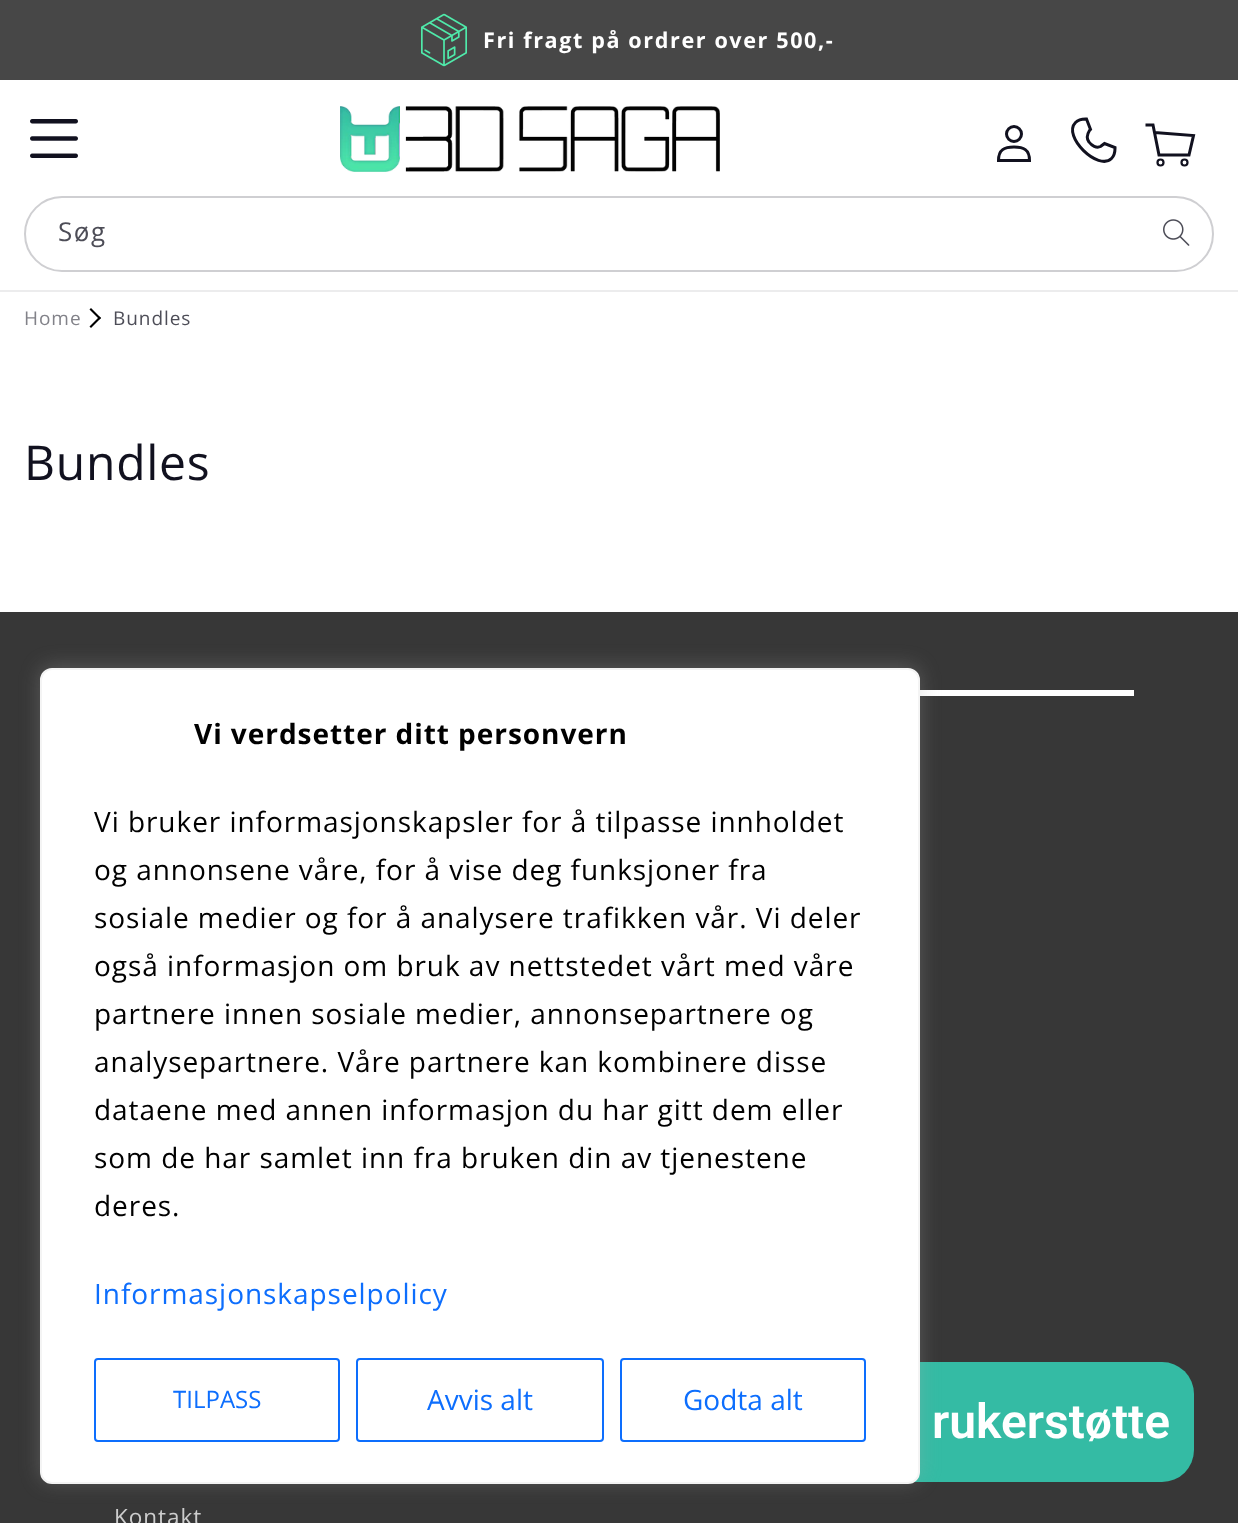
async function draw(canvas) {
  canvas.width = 1238
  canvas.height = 1523
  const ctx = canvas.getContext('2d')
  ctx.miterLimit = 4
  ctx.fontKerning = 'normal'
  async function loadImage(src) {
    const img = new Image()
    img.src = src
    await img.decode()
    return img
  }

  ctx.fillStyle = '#fff'
  ctx.fillRect(0, 0, 1238, 1523)
  ctx.fillStyle = '#474747'
  ctx.fillRect(0, 0, 1238, 80)
  ctx.drawImage(await loadImage('image0.png'), 421, 13, 46, 54)
  ctx.letterSpacing = '1.6px'
  ctx.font = 'bold 21.6px Open Sans'
  ctx.fillStyle = '#fff'
  ctx.fillText('Fri fragt på ordrer over 500,-', 483, 48)
  ctx.fillStyle = '#ececed'
  ctx.fillRect(0, 290, 1238, 2)
  ctx.drawImage(await loadImage('image1.png'), 30, 119, 48, 39)
  ctx.drawImage(await loadImage('image2.png'), 340, 106, 380, 66)
  ctx.beginPath()
  ctx.arc(1014, 134, 7.5, 0, 2 * Math.PI)
  ctx.strokeStyle = '#11111f'
  ctx.lineWidth = 3
  ctx.stroke()
  ctx.beginPath()
  ctx.moveTo(1014, 147)
  ctx.bezierCurveTo(1004.5, 147, 998.5, 149.5, 998.5, 160.5)
  ctx.lineTo(1029.5, 160.5)
  ctx.bezierCurveTo(1029.5, 149.5, 1023.5, 147, 1014, 147)
  ctx.closePath()
  ctx.stroke()
  ctx.beginPath()
  ctx.moveTo(1111.5, 158.5)
  ctx.bezierCurveTo(1114.5, 155.5, 1115, 152.5, 1115, 148.5)
  ctx.lineTo(1115, 147.5)
  ctx.lineTo(1104.5, 143.5)
  ctx.lineTo(1100.5, 146.5)
  ctx.bezierCurveTo(1096.5, 148.5, 1091.5, 145.5, 1089, 142)
  ctx.bezierCurveTo(1086, 138, 1087, 134.5, 1089.5, 130.5)
  ctx.lineTo(1090.5, 129.5)
  ctx.lineTo(1086.5, 119)
  ctx.lineTo(1085.5, 119)
  ctx.bezierCurveTo(1081.5, 119, 1078.5, 119.5, 1075.5, 122.5)
  ctx.bezierCurveTo(1062, 136.5, 1098.5, 171.5, 1111.5, 158.5)
  ctx.closePath()
  ctx.stroke()
  ctx.beginPath()
  ctx.moveTo(1145.5, 125)
  ctx.lineTo(1153, 125)
  ctx.lineTo(1159, 155)
  ctx.lineTo(1189, 155)
  ctx.lineTo(1193.5, 135.5)
  ctx.lineTo(1154.5, 132.5)
  ctx.stroke()
  ctx.beginPath()
  ctx.arc(1160.5, 162.5, 3, 0, 2 * Math.PI)
  ctx.lineWidth = 2.2
  ctx.stroke()
  ctx.beginPath()
  ctx.arc(1184.5, 162.5, 3, 0, 2 * Math.PI)
  ctx.stroke()
  ctx.drawImage(await loadImage('image3.png'), 1163, 219, 27, 27)
  ctx.beginPath()
  ctx.roundRect(25, 197, 1188, 74, 37)
  ctx.strokeStyle = '#cfcfd2'
  ctx.lineWidth = 2
  ctx.stroke()
  ctx.font = '26px Open Sans'
  ctx.fillStyle = '#4d4d57'
  ctx.fillText('Søg', 58, 241)
  ctx.letterSpacing = '0.95px'
  ctx.font = '19px Open Sans'
  ctx.fillStyle = '#828289'
  ctx.fillText('Home', 24, 325)
  ctx.fillStyle = '#000'
  ctx.beginPath()
  ctx.moveTo(91, 308)
  ctx.lineTo(101, 318)
  ctx.lineTo(99.5, 319.5)
  ctx.lineTo(89.5, 309.5)
  ctx.closePath()
  ctx.fill()
  ctx.beginPath()
  ctx.moveTo(99.5, 316.5)
  ctx.lineTo(101, 318)
  ctx.lineTo(91, 328)
  ctx.lineTo(89.5, 326.5)
  ctx.closePath()
  ctx.fill()
  ctx.fillStyle = '#4d4d57'
  ctx.fillText('Bundles', 113, 325)
  ctx.letterSpacing = '0.75px'
  ctx.font = '48px Open Sans'
  ctx.fillStyle = '#11111f'
  ctx.fillText('Bundles', 24, 480)
  ctx.fillStyle = '#373737'
  ctx.fillRect(0, 612, 1238, 911)
  ctx.fillStyle = '#34bba4'
  ctx.beginPath()
  ctx.roundRect(800, 1362, 394, 120, 32)
  ctx.fill()
  ctx.fillStyle = '#fff'
  ctx.fillRect(920, 690, 214, 6)
  ctx.fillStyle = '#acabab4d'
  ctx.filter = 'blur(10px)'
  ctx.beginPath()
  ctx.roundRect(40, 666, 880, 816, 12)
  ctx.fill()
  ctx.filter = 'none'
  ctx.fillStyle = '#fff'
  ctx.beginPath()
  ctx.roundRect(41, 669, 878, 814, 11)
  ctx.fill()
  ctx.strokeStyle = '#f4f4f4'
  ctx.stroke()
  ctx.letterSpacing = '0.95px'
  ctx.font = 'bold 28px Open Sans'
  ctx.fillStyle = '#000'
  ctx.fillText('Vi verdsetter ditt personvern', 194, 744)
  ctx.font = '28px Open Sans'
  ctx.fillText('Vi bruker informasjonskapsler for å tilpasse innholdet', 94, 832)
  ctx.fillText('og annonsene våre, for å vise deg funksjoner fra', 94, 880)
  ctx.fillText('sosiale medier og for å analysere trafikken vår. Vi deler', 94, 928)
  ctx.fillText('også informasjon om bruk av nettstedet vårt med våre', 94, 976)
  ctx.fillText('partnere innen sosiale medier, annonsepartnere og', 94, 1024)
  ctx.fillText('analysepartnere. Våre partnere kan kombinere disse', 94, 1072)
  ctx.fillText('dataene med annen informasjon du har gitt dem eller', 94, 1120)
  ctx.fillText('som de har samlet inn fra bruken din av tjenestene', 94, 1168)
  ctx.fillText('deres.', 94, 1216)
  ctx.fillStyle = '#0d6efd'
  ctx.fillText('Informasjonskapselpolicy', 94, 1304)
  ctx.beginPath()
  ctx.roundRect(95, 1359, 244, 82, 3)
  ctx.strokeStyle = '#0d6efd'
  ctx.stroke()
  ctx.letterSpacing = '0px'
  ctx.font = '24px Open Sans'
  ctx.fillText('TILPASS', 173, 1408)
  ctx.beginPath()
  ctx.roundRect(357, 1359, 246, 82, 3)
  ctx.stroke()
  ctx.font = '28px Open Sans'
  ctx.fillText('Avvis alt', 427, 1410)
  ctx.beginPath()
  ctx.roundRect(621, 1359, 244, 82, 3)
  ctx.stroke()
  ctx.fillText('Godta alt', 683, 1410)
  ctx.font = '600 48px Roboto'
  ctx.fillStyle = '#fff'
  ctx.fillText('rukerstøtte', 932, 1438)
  ctx.letterSpacing = '0.95px'
  ctx.font = '22.5px Open Sans'
  ctx.fillStyle = '#cdcdcd'
  ctx.fillText('Kontakt', 114, 1525)
}

draw(document.querySelector('canvas'))
